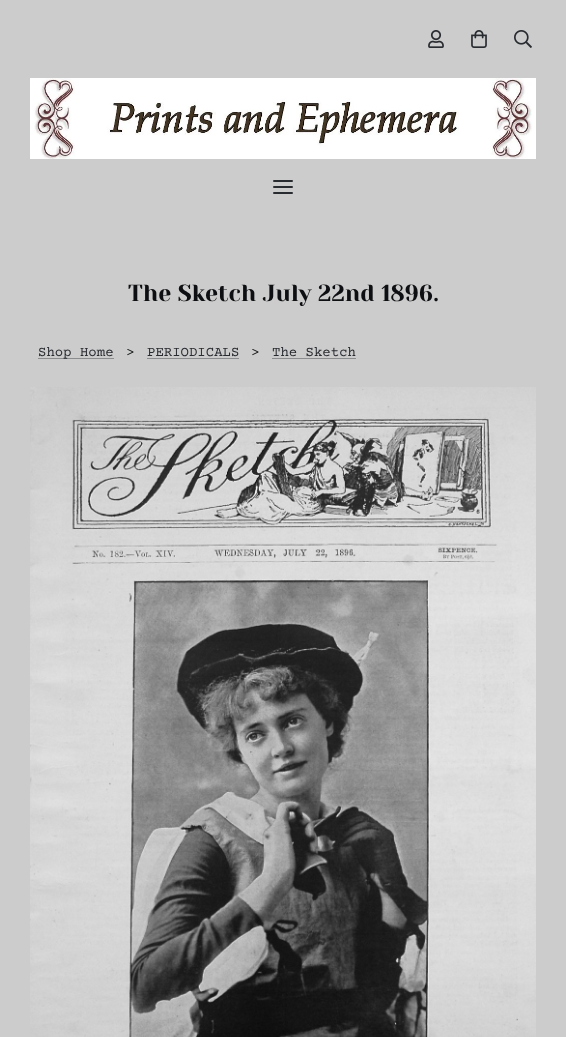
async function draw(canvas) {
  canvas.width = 566
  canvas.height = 1037
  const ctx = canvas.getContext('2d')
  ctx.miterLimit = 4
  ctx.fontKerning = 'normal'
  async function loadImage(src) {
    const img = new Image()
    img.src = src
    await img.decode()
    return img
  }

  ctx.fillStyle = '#ccc'
  ctx.fillRect(0, 0, 566, 1037)
  ctx.drawImage(await loadImage('image0.png'), 428, 30, 16, 18)
  ctx.drawImage(await loadImage('image1.png'), 471, 30, 16, 18)
  ctx.drawImage(await loadImage('image2.png'), 514, 30, 18, 18)
  ctx.drawImage(await loadImage('image3.png'), 30, 78, 506, 81)
  ctx.fillStyle = '#282b30'
  ctx.beginPath()
  ctx.roundRect(273, 186, 20, 2, 1)
  ctx.fill()
  ctx.beginPath()
  ctx.roundRect(273, 180, 20, 2, 1)
  ctx.fill()
  ctx.beginPath()
  ctx.roundRect(273, 192, 20, 2, 1)
  ctx.fill()
  ctx.font = '23.25px Yeseva One'
  ctx.fillStyle = '#0e0f12'
  ctx.fillText('The Sketch July 22nd 1896.', 128, 301)
  ctx.fillStyle = '#8a8c8e'
  ctx.fillRect(38, 358, 76, 1)
  ctx.font = '14px Courier Prime'
  ctx.fillStyle = '#282b30'
  ctx.fillText('Shop Home', 38, 356)
  ctx.fillStyle = '#0e0f12'
  ctx.fillText('>', 126, 356)
  ctx.fillStyle = '#282b30'
  ctx.fillText('PERIODICALS', 147, 356)
  ctx.fillStyle = '#8a8c8e'
  ctx.fillRect(147, 358, 92, 1)
  ctx.fillStyle = '#0e0f12'
  ctx.fillText('>', 251, 356)
  ctx.fillStyle = '#282b30'
  ctx.fillText('The Sketch', 272, 356)
  ctx.fillStyle = '#8a8c8e'
  ctx.fillRect(272, 358, 84, 1)
  ctx.drawImage(await loadImage('image4.png'), 30, 387, 506, 650)
}

draw(document.querySelector('canvas'))
